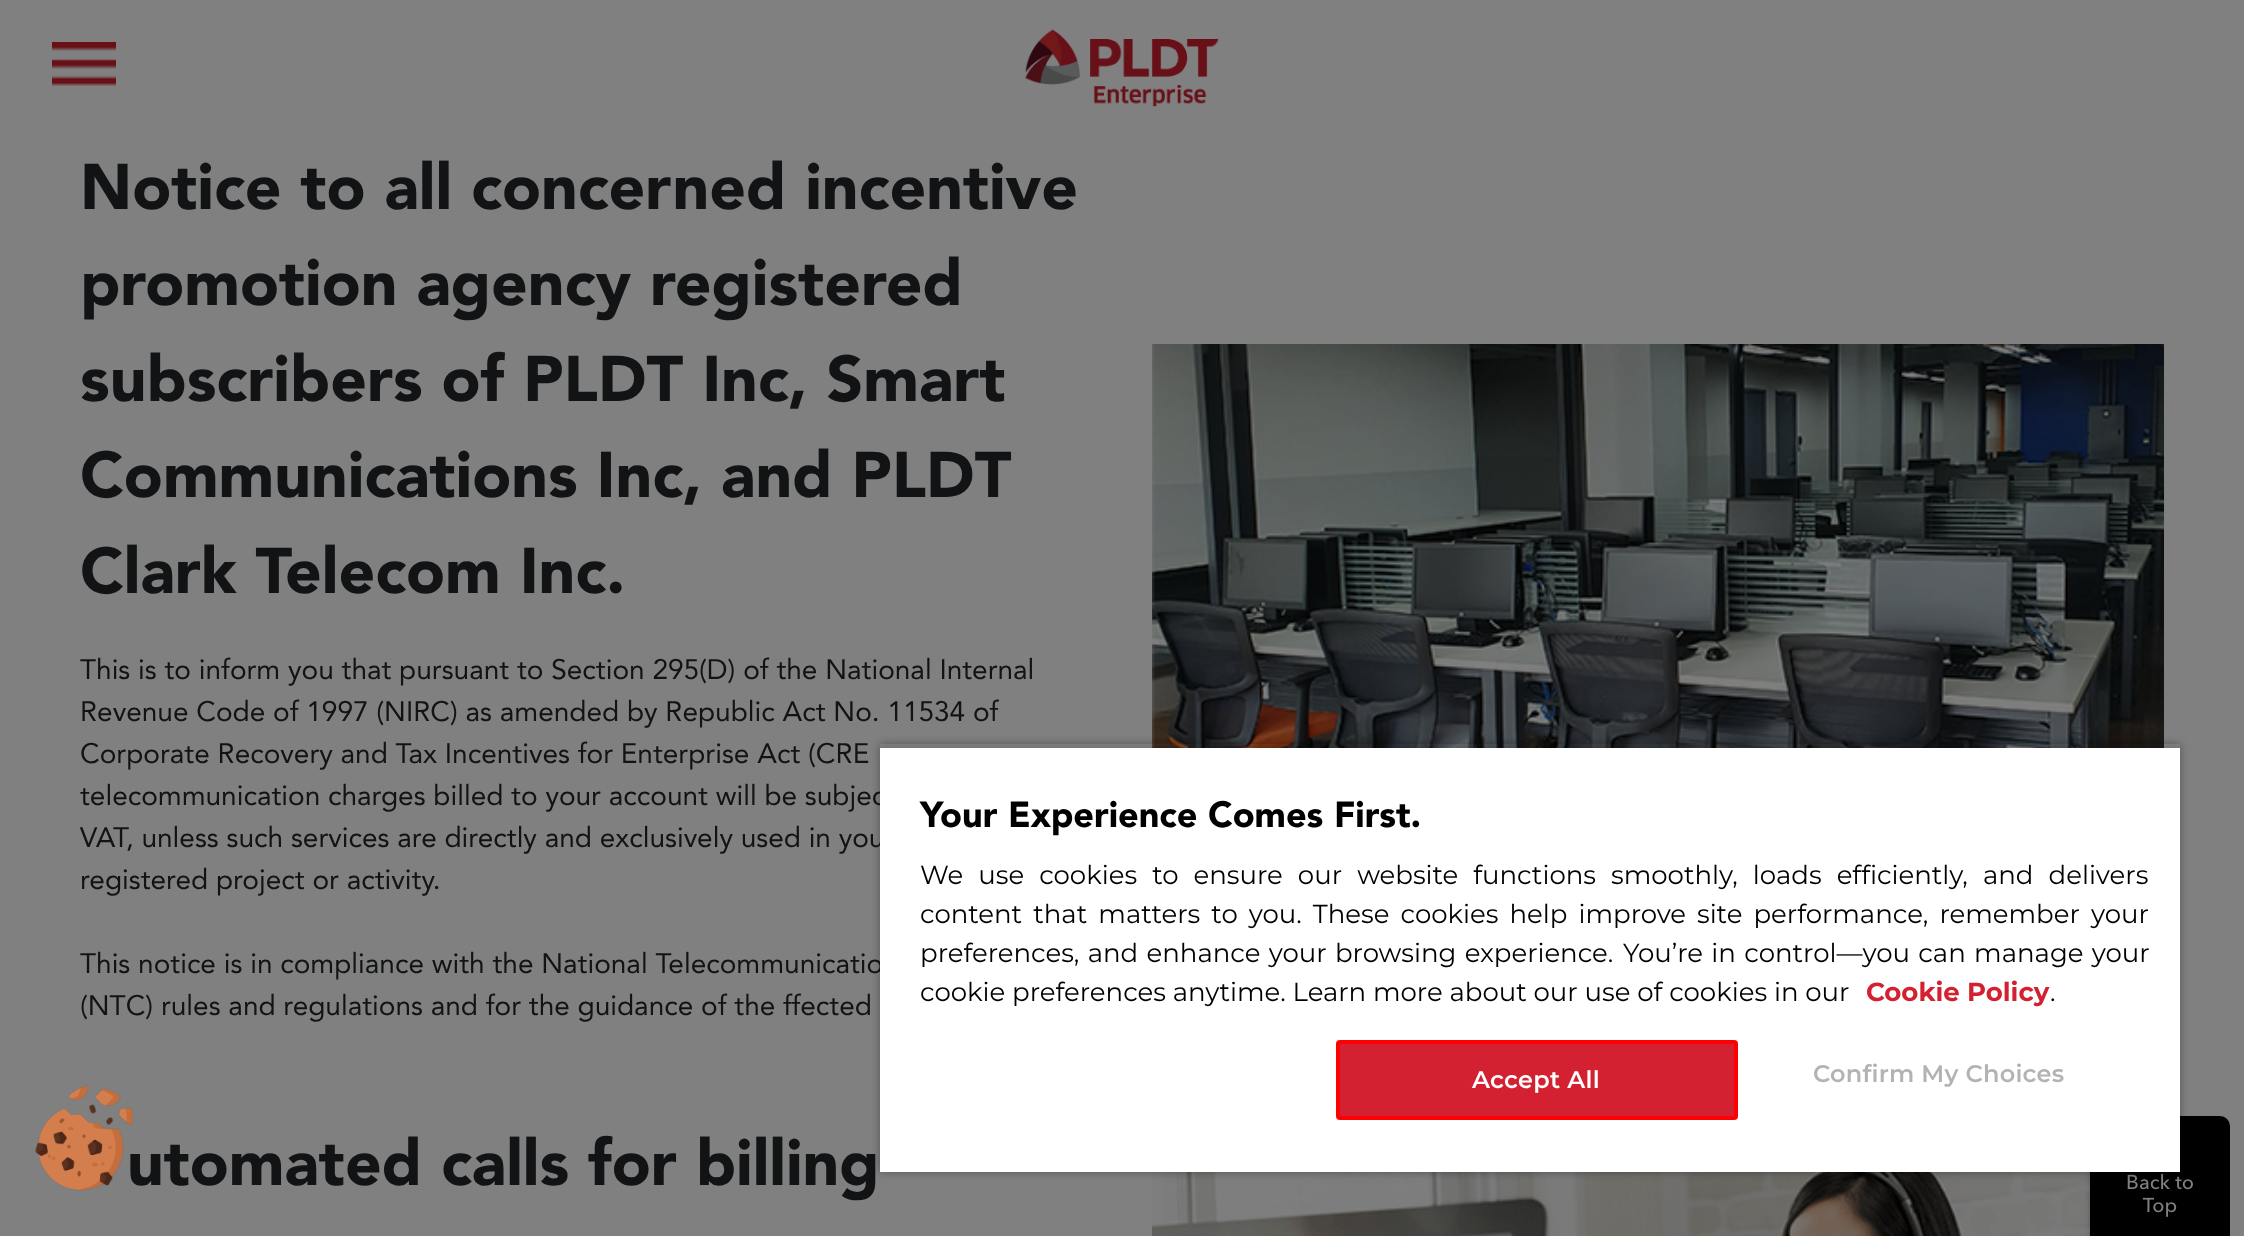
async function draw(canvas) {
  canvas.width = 2244
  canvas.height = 1236
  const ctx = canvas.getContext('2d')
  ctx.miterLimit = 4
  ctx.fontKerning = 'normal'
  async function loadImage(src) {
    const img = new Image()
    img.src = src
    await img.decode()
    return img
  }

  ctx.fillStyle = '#808080'
  ctx.fillRect(0, 0, 2244, 1236)
  ctx.drawImage(await loadImage('image0.png'), 52, 42, 64, 44)
  ctx.drawImage(await loadImage('image1.png'), 1025, 29, 194, 78)
  ctx.font = '900 64px Avenir'
  ctx.fillStyle = '#111315'
  ctx.fillText('Notice to all concerned incentive', 80, 209)
  ctx.fillText('promotion agency registered', 80, 305)
  ctx.fillText('subscribers of PLDT Inc, Smart', 80, 401)
  ctx.fillText('Communications Inc, and PLDT', 80, 497)
  ctx.fillText('Clark Telecom Inc.', 80, 593)
  ctx.font = '28px Avenir'
  ctx.fillText('This is to inform you that pursuant to Section 295(D) of the National Internal', 80, 679)
  ctx.fillText('Revenue Code of 1997 (NIRC) as amended by Republic Act No. 11534 of', 80, 721)
  ctx.fillText('Corporate Recovery and Tax Incentives for Enterprise Act (CRE', 80, 763)
  ctx.fillText('telecommunication charges billed to your account will be subjec', 80, 805)
  ctx.fillText('VAT, unless such services are directly and exclusively used in you', 80, 847)
  ctx.fillText('registered project or activity.', 80, 889)
  ctx.fillText('This notice is in compliance with the National Telecommunicatio', 80, 973)
  ctx.fillText('(NTC) rules and regulations and for the guidance of the ffected', 80, 1015)
  ctx.drawImage(await loadImage('image2.png'), 1152, 344, 1012, 404)
  ctx.font = '900 64px Avenir'
  ctx.fillText('utomated calls for billing', 127, 1185)
  ctx.drawImage(await loadImage('image3.png'), 1152, 1172, 938, 64)
  ctx.drawImage(await loadImage('image5.png'), 2090, 1116, 140, 120)
  ctx.save()
  ctx.beginPath()
  ctx.moveTo(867, 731)
  ctx.lineTo(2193, 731)
  ctx.lineTo(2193, 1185)
  ctx.lineTo(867, 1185)
  ctx.closePath()
  ctx.moveTo(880, 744)
  ctx.lineTo(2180, 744)
  ctx.lineTo(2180, 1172)
  ctx.lineTo(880, 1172)
  ctx.closePath()
  ctx.clip('evenodd')
  ctx.fillStyle = '#00000059'
  ctx.filter = 'blur(4px)'
  ctx.beginPath()
  ctx.rect(880, 744, 1300, 428)
  ctx.fill()
  ctx.filter = 'none'
  ctx.restore()
  ctx.save()
  ctx.beginPath()
  ctx.rect(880, 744, 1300, 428)
  ctx.clip()
  ctx.fillStyle = '#00000033'
  ctx.filter = 'blur(4px)'
  ctx.beginPath()
  ctx.rect(880, 748, 1300, 424)
  ctx.fill()
  ctx.filter = 'none'
  ctx.restore()
  ctx.fillStyle = '#fff'
  ctx.fillRect(880, 748, 1300, 424)
  ctx.font = '900 36px Avenir'
  ctx.fillStyle = '#000'
  ctx.fillText('Your Experience Comes First.', 920, 827)
  ctx.wordSpacing = '8.25px'
  ctx.font = '26px Montserrat'
  ctx.fillText('We use cookies to ensure our website functions smoothly, loads efficiently, and delivers', 920, 884)
  ctx.wordSpacing = '4.25px'
  ctx.fillText('content that matters to you. These cookies help improve site performance, remember your', 920, 923)
  ctx.wordSpacing = '1.5px'
  ctx.fillText('preferences, and enhance your browsing experience.', 920, 962)
  ctx.fillText('You’re in control—you can manage your', 1623, 962)
  ctx.wordSpacing = '0px'
  ctx.fillText('cookie preferences anytime. Learn more about our use of cookies in our', 920, 1001)
  ctx.font = 'bold 26px Montserrat'
  ctx.fillStyle = '#d32131'
  ctx.fillText('Cookie Policy', 1866, 1001)
  ctx.font = '26px Montserrat'
  ctx.fillStyle = '#000'
  ctx.fillText('.', 2050, 1001)
  ctx.fillStyle = '#d32131'
  ctx.beginPath()
  ctx.roundRect(1338, 1042, 398, 76, 2)
  ctx.fill()
  ctx.strokeStyle = '#f00'
  ctx.lineWidth = 4
  ctx.stroke()
  ctx.letterSpacing = '0.25px'
  ctx.font = '600 24px Montserrat'
  ctx.fillStyle = '#fff'
  ctx.fillText('Accept All', 1472, 1088)
  ctx.fillStyle = '#b3b3b3'
  ctx.fillText('Confirm My Choices', 1813, 1082)
  ctx.drawImage(await loadImage('image4.png'), 35, 1085, 98, 106)
}

draw(document.querySelector('canvas'))
